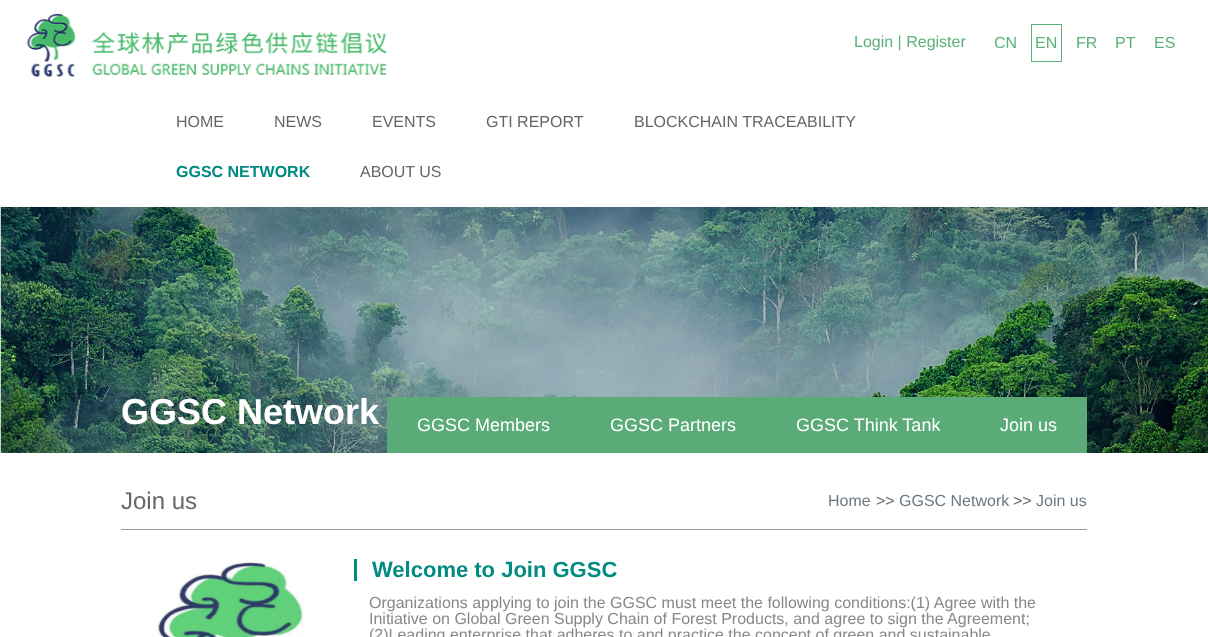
async function draw(canvas) {
  canvas.width = 1208
  canvas.height = 637
  const ctx = canvas.getContext('2d')
  ctx.miterLimit = 4
  ctx.fontKerning = 'normal'
  async function loadImage(src) {
    const img = new Image()
    img.src = src
    await img.decode()
    return img
  }

  ctx.fillStyle = '#fff'
  ctx.fillRect(0, 0, 1208, 637)
  ctx.drawImage(await loadImage('image0.png'), 26, 13, 361, 64)
  ctx.font = '16px Liberation Sans'
  ctx.fillStyle = '#5cb07a'
  ctx.fillText('Login | Register', 854, 47)
  ctx.fillText('CN', 994, 48)
  ctx.strokeStyle = '#5cb07a'
  ctx.strokeRect(1031.5, 24.5, 30, 37)
  ctx.fillText('EN', 1035, 48)
  ctx.fillText('FR', 1076, 48)
  ctx.fillText('PT', 1115, 48)
  ctx.fillText('ES', 1154, 48)
  ctx.fillStyle = '#666'
  ctx.fillText('HOME', 176, 127)
  ctx.fillText('NEWS', 274, 127)
  ctx.fillText('EVENTS', 372, 127)
  ctx.fillText('GTI REPORT', 486, 127)
  ctx.fillText('BLOCKCHAIN TRACEABILITY', 634, 127)
  ctx.font = 'bold 16px Liberation Sans'
  ctx.fillStyle = '#028b83'
  ctx.fillText('GGSC NETWORK', 176, 177)
  ctx.font = '16px Liberation Sans'
  ctx.fillStyle = '#666'
  ctx.fillText('ABOUT US', 360, 177)
  ctx.drawImage(await loadImage('image1.png'), 0, 207, 1208, 246)
  ctx.font = 'bold 36px Liberation Sans'
  ctx.fillStyle = '#fff'
  ctx.fillText('GGSC Network', 121, 424)
  ctx.fillStyle = '#5aab77'
  ctx.fillRect(387, 397, 700, 56)
  ctx.font = '18px Liberation Sans'
  ctx.fillStyle = '#fff'
  ctx.fillText('GGSC Members', 417, 431)
  ctx.fillText('GGSC Partners', 610, 431)
  ctx.fillText('GGSC Think Tank', 796, 431)
  ctx.fillText('Join us', 1000, 431)
  ctx.fillStyle = '#999'
  ctx.fillRect(121, 529, 966, 1)
  ctx.font = '24px Liberation Sans'
  ctx.fillStyle = '#666'
  ctx.fillText('Join us', 121, 509)
  ctx.font = '16px Liberation Sans'
  ctx.fillStyle = '#6b7985'
  ctx.fillText('Home', 828, 506)
  ctx.fillStyle = '#666'
  ctx.fillText('>>', 876, 506)
  ctx.fillStyle = '#6b7985'
  ctx.fillText('GGSC Network', 899, 506)
  ctx.fillStyle = '#666'
  ctx.fillText('>>', 1013, 506)
  ctx.fillStyle = '#6b7985'
  ctx.fillText('Join us', 1036, 506)
  ctx.drawImage(await loadImage('image2.png'), 157, 561, 148, 76)
  ctx.fillStyle = '#028b83'
  ctx.fillRect(354, 559, 3, 22)
  ctx.font = 'bold 22px Liberation Sans'
  ctx.fillText('Welcome to Join GGSC', 372, 577)
  ctx.font = '16px Liberation Sans'
  ctx.fillStyle = '#888'
  ctx.fillText('Organizations applying to join the GGSC must meet the following conditions:(1) Agree with the', 369, 608)
  ctx.fillText('Initiative on Global Green Supply Chain of Forest Products, and agree to sign the Agreement;', 369, 624)
  ctx.fillText('(2)Leading enterprise that adheres to and practice the concept of green and sustainable', 369, 640)
}

draw(document.querySelector('canvas'))
